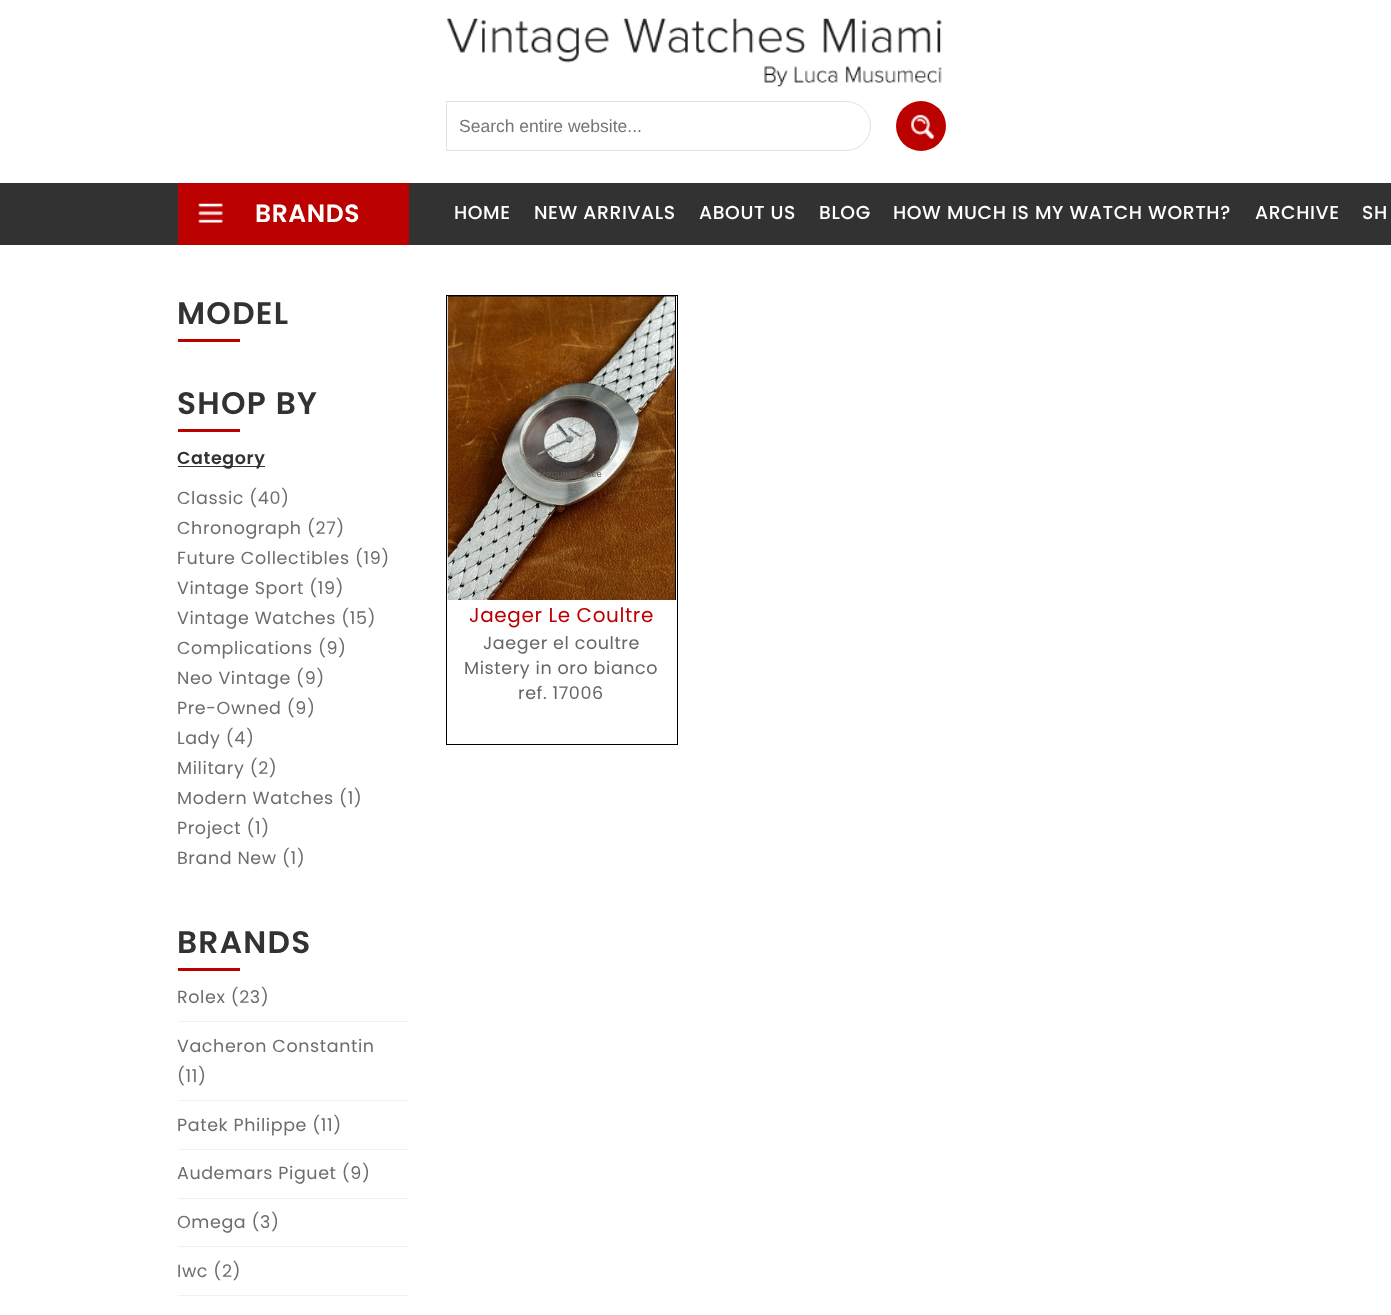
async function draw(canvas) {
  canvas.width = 1391
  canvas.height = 1315
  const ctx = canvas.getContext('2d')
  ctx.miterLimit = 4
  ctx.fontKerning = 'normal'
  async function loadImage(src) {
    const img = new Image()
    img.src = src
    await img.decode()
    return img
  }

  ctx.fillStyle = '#fff'
  ctx.fillRect(0, 0, 1391, 1315)
  ctx.drawImage(await loadImage('image0.png'), 446, 18, 496, 69)
  ctx.beginPath()
  ctx.roundRect(446.5, 101.5, 424, 49, [0, 24.5, 24.5, 0])
  ctx.strokeStyle = '#e1e1e1'
  ctx.stroke()
  ctx.font = '17.5px Liberation Sans'
  ctx.fillStyle = '#757575'
  ctx.fillText('Search entire website...', 459, 132)
  ctx.fillStyle = '#b00'
  ctx.beginPath()
  ctx.arc(921, 126, 25, 0, 2 * Math.PI)
  ctx.fill()
  ctx.drawImage(await loadImage('image1.png'), 911, 114, 23, 25)
  ctx.fillStyle = '#323232'
  ctx.fillRect(0, 183, 1391, 62)
  ctx.fillStyle = '#b00'
  ctx.fillRect(178, 183, 231, 62)
  ctx.drawImage(await loadImage('image2.png'), 198, 203, 25, 20)
  ctx.letterSpacing = '0.6px'
  ctx.font = '600 25px Poppins'
  ctx.fillStyle = '#fff'
  ctx.fillText('BRANDS', 255, 222)
  ctx.font = '500 18.75px Poppins'
  ctx.fillText('HOME', 454, 219)
  ctx.fillText('NEW ARRIVALS', 534, 219)
  ctx.fillText('ABOUT US', 699, 219)
  ctx.fillText('BLOG', 819, 219)
  ctx.fillText('HOW MUCH IS MY WATCH WORTH?', 893, 219)
  ctx.fillText('ARCHIVE', 1255, 219)
  ctx.fillText('SH', 1362, 219)
  ctx.letterSpacing = '1.25px'
  ctx.font = '600 31.25px Poppins'
  ctx.fillStyle = '#323232'
  ctx.fillText('MODEL', 177, 324)
  ctx.fillStyle = '#b00'
  ctx.fillRect(178, 339, 62, 3)
  ctx.fillStyle = '#323232'
  ctx.fillText('SHOP BY', 177, 414)
  ctx.fillStyle = '#b00'
  ctx.fillRect(178, 429, 62, 3)
  ctx.fillStyle = '#323232'
  ctx.fillRect(178, 466, 87, 1)
  ctx.letterSpacing = '0.6px'
  ctx.font = '600 17.5px Poppins'
  ctx.fillText('Category', 177, 464)
  ctx.font = '17.5px Poppins'
  ctx.fillStyle = '#6d6d6d'
  ctx.fillText('Classic (40)', 177, 504)
  ctx.fillText('Chronograph (27)', 177, 534)
  ctx.fillText('Future Collectibles (19)', 177, 564)
  ctx.fillText('Vintage Sport (19)', 177, 594)
  ctx.fillText('Vintage Watches (15)', 177, 624)
  ctx.fillText('Complications (9)', 177, 654)
  ctx.fillText('Neo Vintage (9)', 177, 684)
  ctx.fillText('Pre-Owned (9)', 177, 714)
  ctx.fillText('Lady (4)', 177, 744)
  ctx.fillText('Military (2)', 177, 774)
  ctx.fillText('Modern Watches (1)', 177, 804)
  ctx.fillText('Project (1)', 177, 834)
  ctx.fillText('Brand New (1)', 177, 864)
  ctx.letterSpacing = '1.25px'
  ctx.font = '600 31.25px Poppins'
  ctx.fillStyle = '#323232'
  ctx.fillText('BRANDS', 177, 953)
  ctx.fillStyle = '#b00'
  ctx.fillRect(178, 968, 62, 3)
  ctx.letterSpacing = '0.6px'
  ctx.font = '17.5px Poppins'
  ctx.fillStyle = '#6d6d6d'
  ctx.fillText('Rolex (23)', 177, 1003)
  ctx.fillStyle = '#f1f1f1'
  ctx.fillRect(178, 1021, 231, 1)
  ctx.fillStyle = '#6d6d6d'
  ctx.fillText('Vacheron Constantin', 177, 1052)
  ctx.fillText('(11)', 177, 1082)
  ctx.fillStyle = '#f1f1f1'
  ctx.fillRect(178, 1100, 231, 1)
  ctx.fillStyle = '#6d6d6d'
  ctx.fillText('Patek Philippe (11)', 177, 1131)
  ctx.fillStyle = '#f1f1f1'
  ctx.fillRect(178, 1149, 231, 1)
  ctx.fillStyle = '#6d6d6d'
  ctx.fillText('Audemars Piguet (9)', 177, 1179)
  ctx.fillStyle = '#f1f1f1'
  ctx.fillRect(178, 1198, 231, 1)
  ctx.fillStyle = '#6d6d6d'
  ctx.fillText('Omega (3)', 177, 1228)
  ctx.fillStyle = '#f1f1f1'
  ctx.fillRect(178, 1246, 231, 1)
  ctx.fillStyle = '#6d6d6d'
  ctx.fillText('Iwc (2)', 177, 1277)
  ctx.fillStyle = '#f1f1f1'
  ctx.fillRect(178, 1295, 231, 1)
  ctx.strokeStyle = '#000'
  ctx.strokeRect(446.5, 295.5, 231, 449)
  ctx.fillStyle = '#000'
  ctx.fillRect(448, 296, 228, 304)
  ctx.drawImage(await loadImage('image3.png'), 447, 296, 228, 304)
  ctx.letterSpacing = '0.25px'
  ctx.font = '9.5px Liberation Sans'
  ctx.fillStyle = '#635d59'
  ctx.fillText('Request Price', 539, 477)
  ctx.letterSpacing = '0.6px'
  ctx.font = '20px Poppins'
  ctx.fillStyle = '#b00'
  ctx.fillText('Jaeger Le Coultre', 469, 622)
  ctx.font = '17.5px Poppins'
  ctx.fillStyle = '#666'
  ctx.fillText('Jaeger el coultre', 483, 649)
  ctx.fillText('Mistery in oro bianco', 464, 674)
  ctx.fillText('ref. 17006', 518, 699)
}

draw(document.querySelector('canvas'))
